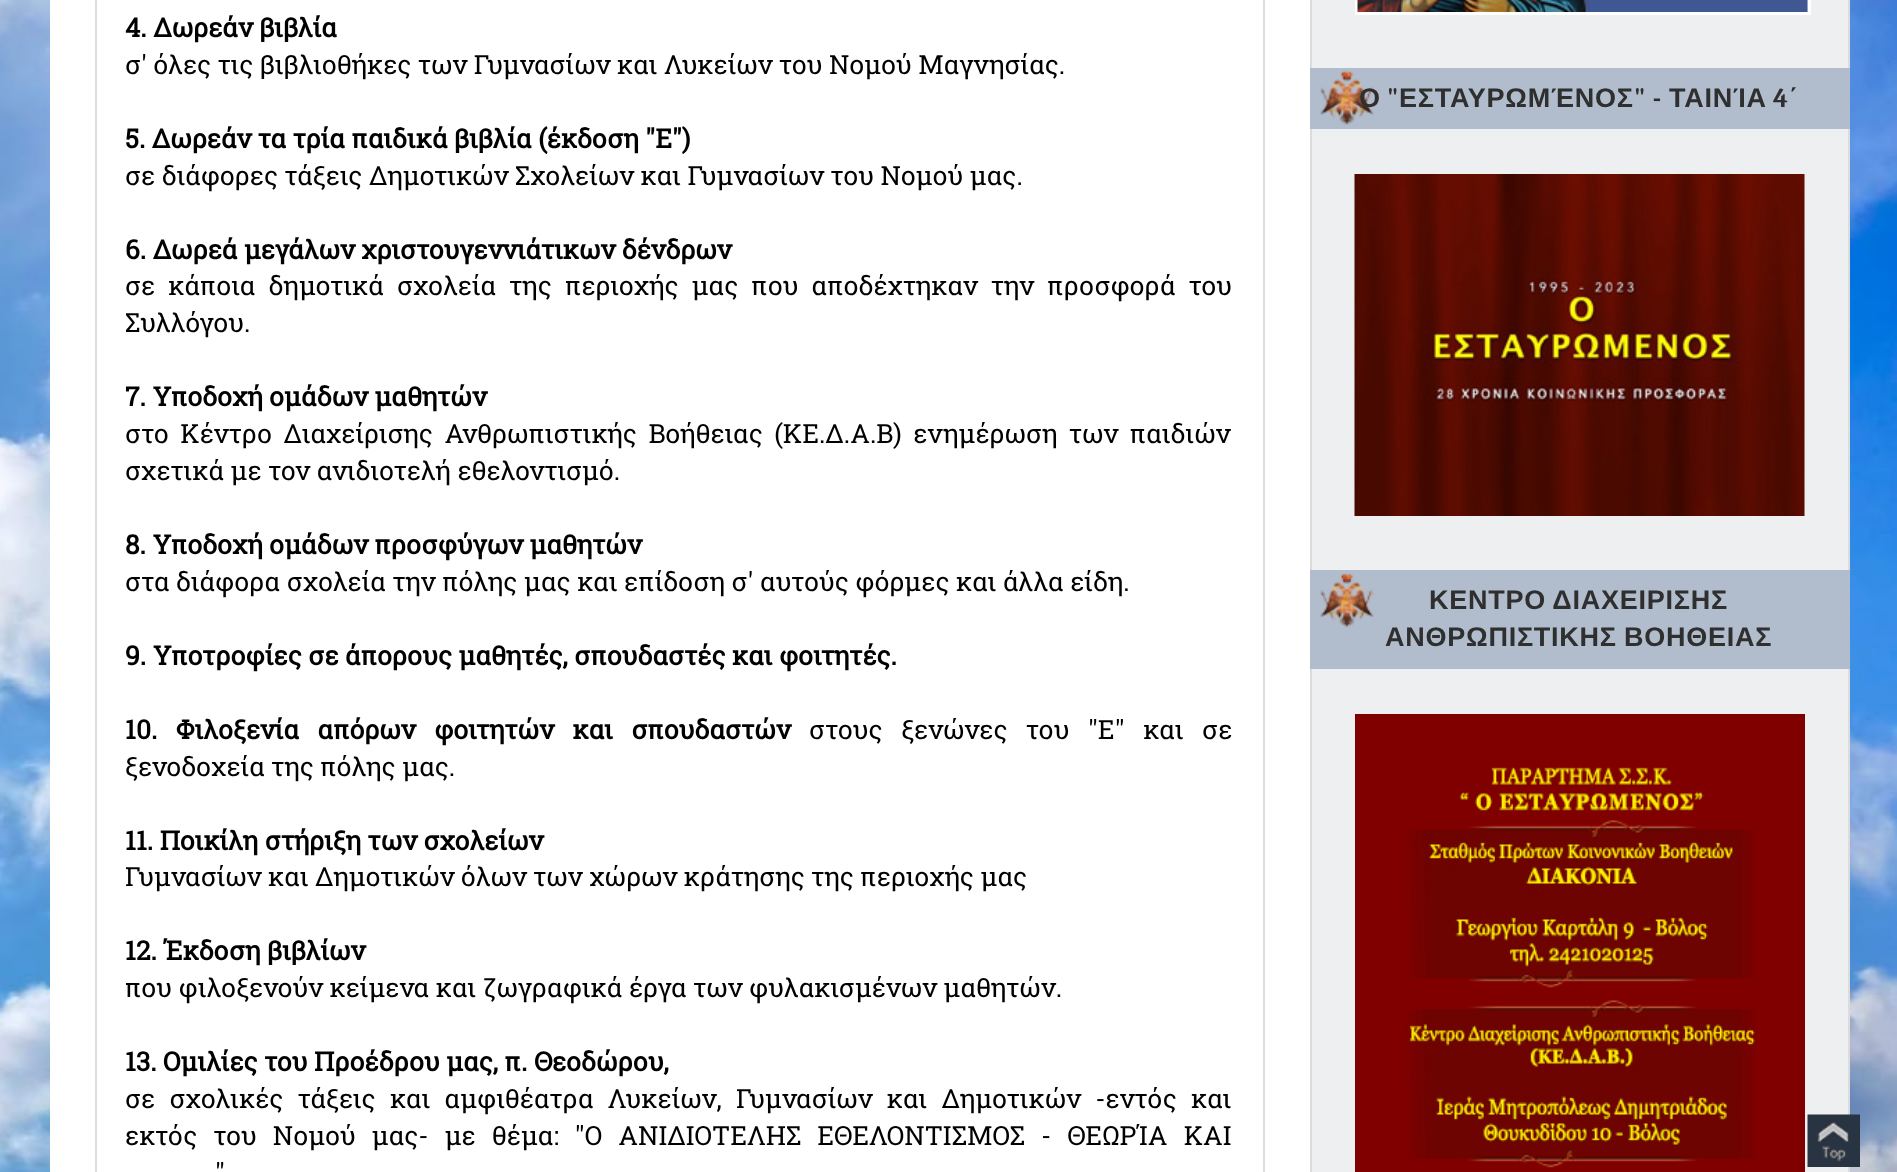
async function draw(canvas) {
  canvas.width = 1897
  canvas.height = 1172
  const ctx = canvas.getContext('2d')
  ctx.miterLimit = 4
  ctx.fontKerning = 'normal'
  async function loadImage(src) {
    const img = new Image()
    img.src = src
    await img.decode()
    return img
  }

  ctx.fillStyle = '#fff'
  ctx.fillRect(0, 0, 1897, 1172)
  ctx.drawImage(await loadImage('image0.png'), 0, 0, 1897, 1172)
  ctx.fillRect(50, 0, 1260, 1172)
  ctx.fillStyle = '#edeff1'
  ctx.beginPath()
  ctx.rect(1311, -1, 538, 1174)
  ctx.fill()
  ctx.strokeStyle = '#dcdcdc'
  ctx.lineWidth = 2
  ctx.stroke()
  ctx.strokeStyle = '#dedede'
  ctx.strokeRect(96, -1, 1168, 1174)
  ctx.font = 'bold 26.4px Roboto Slab'
  ctx.fillStyle = '#000'
  ctx.fillText('4. Δωρεάν βιβλία', 125, 37)
  ctx.font = '26.4px Roboto Slab'
  ctx.fillText('σ\' όλες τις βιβλιοθήκες των Γυμνασίων και Λυκείων του Νομού Μαγνησίας.', 125, 74)
  ctx.font = 'bold 26.4px Roboto Slab'
  ctx.fillText('5. Δωρεάν τα τρία παιδικά βιβλία (έκδοση "Ε")', 125, 148)
  ctx.font = '26.4px Roboto Slab'
  ctx.fillText('σε διάφορες τάξεις Δημοτικών Σχολείων και Γυμνασίων του Νομού μας.', 125, 185)
  ctx.font = 'bold 26.4px Roboto Slab'
  ctx.fillText('6. Δωρεά μεγάλων χριστουγεννιάτικων δένδρων', 125, 259)
  ctx.wordSpacing = '6.6px'
  ctx.font = '26.4px Roboto Slab'
  ctx.fillText('σε κάποια δημοτικά σχολεία της περιοχής μας που αποδέχτηκαν την προσφορά του', 125, 295)
  ctx.wordSpacing = '0px'
  ctx.fillText('Συλλόγου.', 125, 332)
  ctx.font = 'bold 26.4px Roboto Slab'
  ctx.fillText('7. Υποδοχή ομάδων μαθητών', 125, 406)
  ctx.wordSpacing = '5px'
  ctx.font = '26.4px Roboto Slab'
  ctx.fillText('στο Κέντρο Διαχείρισης Ανθρωπιστικής Βοήθειας (ΚΕ.Δ.Α.Β) ενημέρωση των παιδιών', 125, 443)
  ctx.wordSpacing = '0px'
  ctx.fillText('σχετικά με τον ανιδιοτελή εθελοντισμό.', 125, 480)
  ctx.font = 'bold 26.4px Roboto Slab'
  ctx.fillText('8. Υποδοχή ομάδων προσφύγων μαθητών', 125, 554)
  ctx.font = '26.4px Roboto Slab'
  ctx.fillText('στα διάφορα σχολεία την πόλης μας και επίδοση σ\' αυτούς φόρμες και άλλα είδη.', 125, 591)
  ctx.font = 'bold 26.4px Roboto Slab'
  ctx.fillText('9. Υποτροφίες σε άπορους μαθητές, σπουδαστές και φοιτητές.', 125, 665)
  ctx.wordSpacing = '12px'
  ctx.fillText('10. Φιλοξενία απόρων φοιτητών και σπουδαστών', 125, 739)
  ctx.font = '26.4px Roboto Slab'
  ctx.fillText('στους ξενώνες του "Ε" και σε', 809, 739)
  ctx.wordSpacing = '0px'
  ctx.fillText('ξενοδοχεία της πόλης μας.', 125, 776)
  ctx.font = 'bold 26.4px Roboto Slab'
  ctx.fillText('11. Ποικίλη στήριξη των σχολείων', 125, 850)
  ctx.font = '26.4px Roboto Slab'
  ctx.fillText('Γυμνασίων και Δημοτικών όλων των χώρων κράτησης της περιοχής μας', 125, 886)
  ctx.font = 'bold 26.4px Roboto Slab'
  ctx.fillText('12. Έκδοση βιβλίων', 125, 960)
  ctx.font = '26.4px Roboto Slab'
  ctx.fillText('που φιλοξενούν κείμενα και ζωγραφικά έργα των φυλακισμένων μαθητών.', 125, 997)
  ctx.font = 'bold 26.4px Roboto Slab'
  ctx.fillText('13. Ομιλίες του Προέδρου μας, π. Θεοδώρου,', 125, 1071)
  ctx.wordSpacing = '7.75px'
  ctx.font = '26.4px Roboto Slab'
  ctx.fillText('σε σχολικές τάξεις και αμφιθέατρα Λυκείων, Γυμνασίων και Δημοτικών -εντός και', 125, 1108)
  ctx.wordSpacing = '9.5px'
  ctx.fillText('εκτός του Νομού μας- με θέμα: "Ο ΑΝΙΔΙΟΤΕΛΗΣ ΕΘΕΛΟΝΤΙΣΜΟΣ - ΘΕΩΡΊΑ ΚΑΙ', 125, 1145)
  ctx.wordSpacing = '0px'
  ctx.fillText('"', 215, 1182)
  ctx.strokeStyle = '#fff'
  ctx.lineWidth = 3
  ctx.strokeRect(1356.5, -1.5, 453, 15)
  ctx.drawImage(await loadImage('image1.png'), 1357, 0, 451, 12)
  ctx.fillStyle = '#b1bccc'
  ctx.fillRect(1310, 68, 540, 61)
  ctx.drawImage(await loadImage('image2.png'), 1320, 70, 54, 55)
  ctx.letterSpacing = '0.75px'
  ctx.font = 'bold 27px Liberation Sans'
  ctx.fillStyle = '#2f2f2f'
  ctx.fillText('Ο', 1359, 107)
  ctx.font = 'bold 27px Caladea'
  ctx.fillText('"', 1387, 107)
  ctx.font = 'bold 27px Liberation Sans'
  ctx.fillText('ΕΣΤΑΥΡΩΜΈΝΟΣ', 1399, 107)
  ctx.font = 'bold 27px Caladea'
  ctx.fillText('" -', 1634, 107)
  ctx.font = 'bold 27px Liberation Sans'
  ctx.fillText('ΤΑΙΝΊΑ', 1669, 107)
  ctx.font = 'bold 27px Caladea'
  ctx.fillText('4', 1773, 107)
  ctx.font = 'bold 27px Liberation Sans'
  ctx.fillText('΄', 1789, 107)
  ctx.drawImage(await loadImage('image3.png'), 1354, 174, 451, 342)
  ctx.fillStyle = '#b1bccc'
  ctx.fillRect(1310, 570, 540, 99)
  ctx.drawImage(await loadImage('image4.png'), 1320, 573, 54, 55)
  ctx.wordSpacing = '-1px'
  ctx.fillStyle = '#2f2f2f'
  ctx.fillText('ΚΕΝΤΡΟ ΔΙΑΧΕΙΡΙΣΗΣ', 1429, 609)
  ctx.wordSpacing = '0px'
  ctx.fillText('ΑΝΘΡΩΠΙΣΤΙΚΗΣ', 1385, 646)
  ctx.fillText('ΒΟΗΘΕΙΑΣ', 1624, 646)
  ctx.fillStyle = '#800000'
  ctx.fillRect(1355, 714, 450, 458)
  ctx.drawImage(await loadImage('image5.png'), 1405, 767, 351, 401)
  ctx.drawImage(await loadImage('image6.png'), 1807, 1114, 53, 53)
}

draw(document.querySelector('canvas'))
